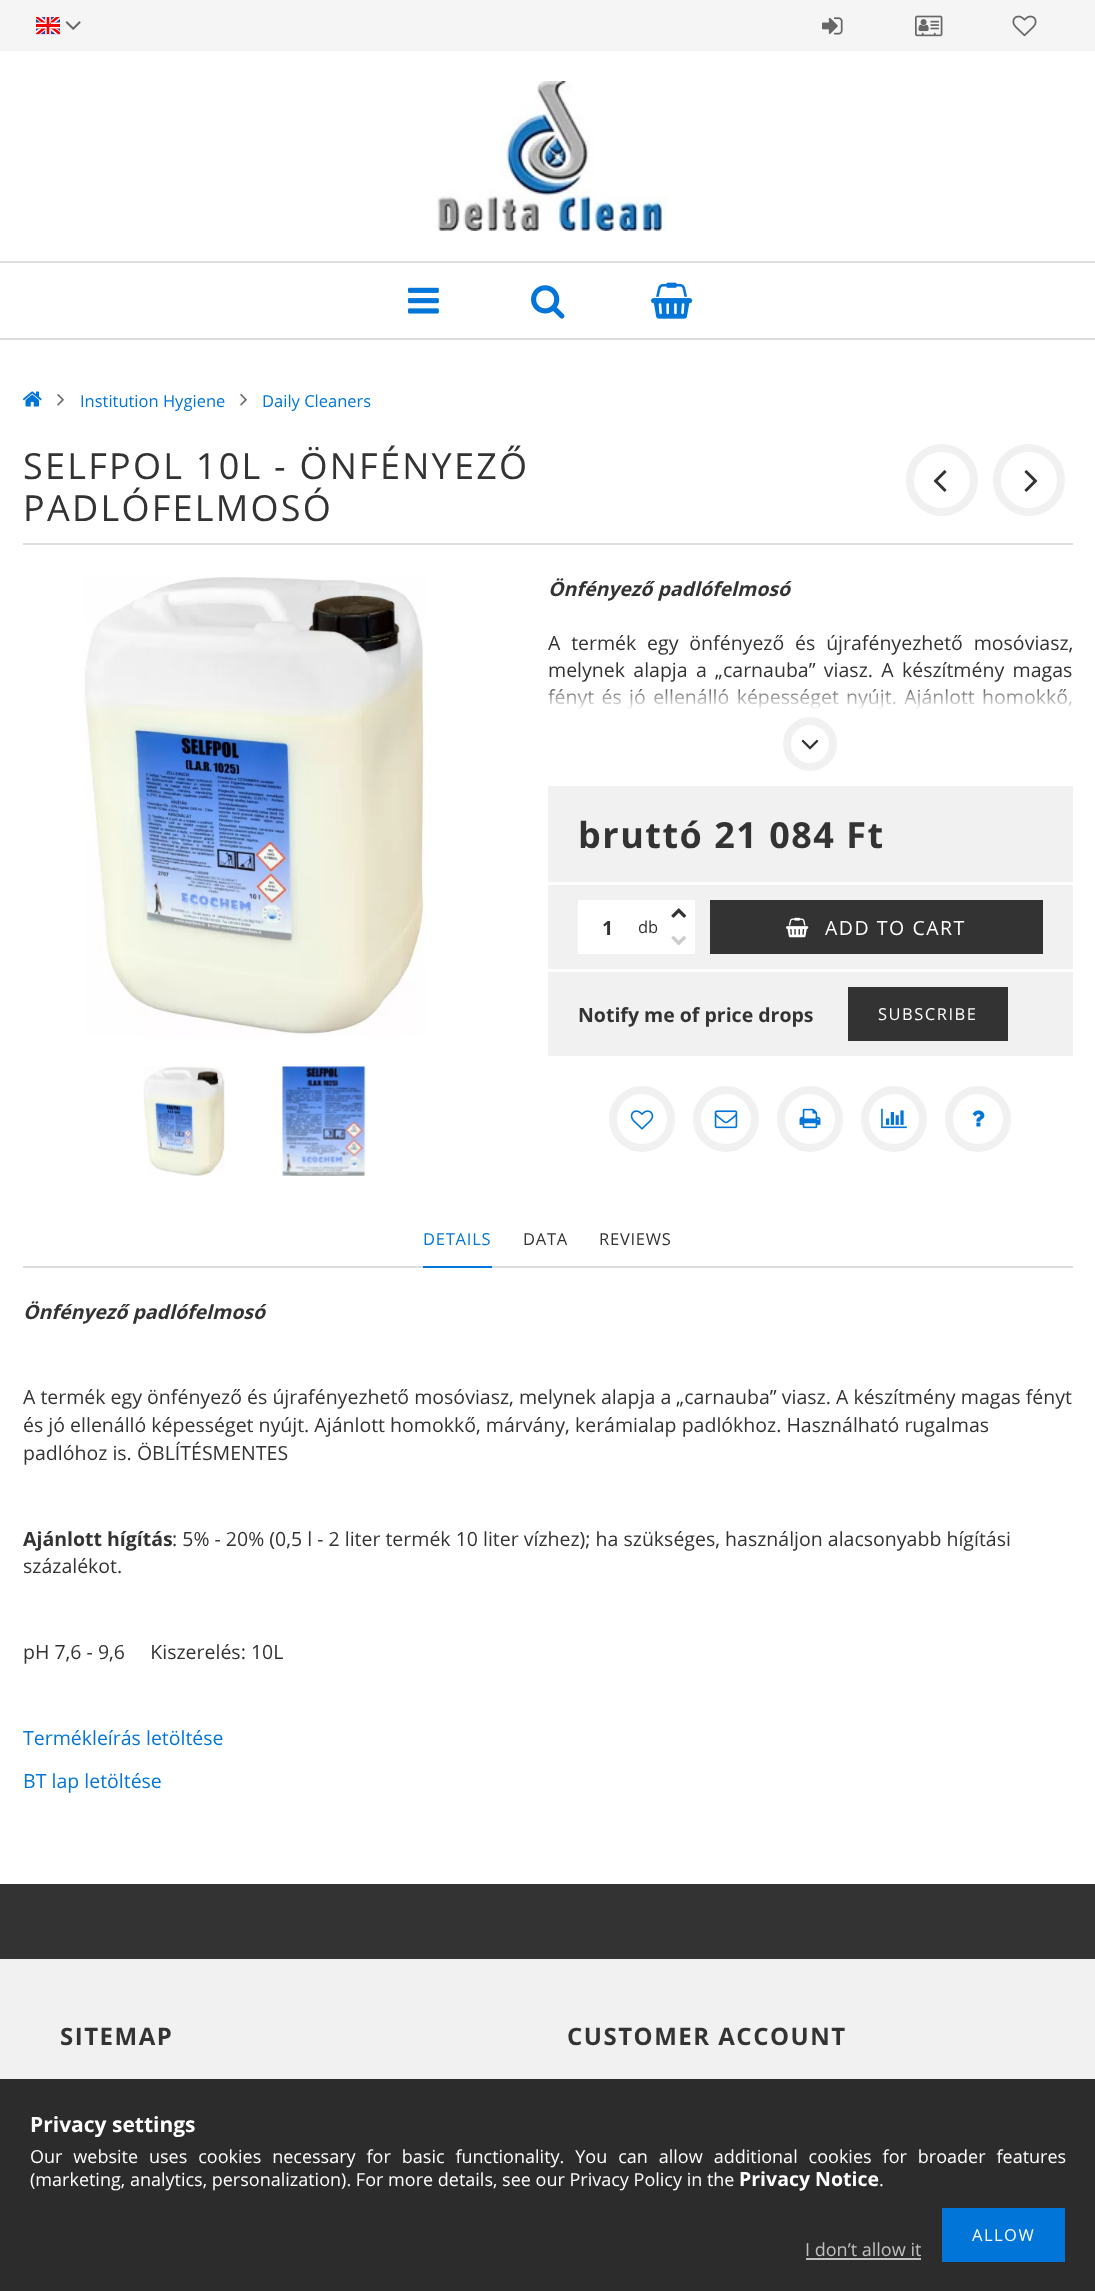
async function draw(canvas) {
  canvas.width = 1095
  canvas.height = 2291
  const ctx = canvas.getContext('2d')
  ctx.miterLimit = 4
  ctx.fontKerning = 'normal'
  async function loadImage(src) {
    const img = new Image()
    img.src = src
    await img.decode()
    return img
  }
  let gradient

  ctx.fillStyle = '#fff'
  ctx.fillRect(0, 0, 1095, 2291)
  ctx.fillStyle = '#f5f5f5'
  ctx.fillRect(0, 0, 1095, 51)
  ctx.drawImage(await loadImage('image0.png'), 36, 17, 24, 18)
  ctx.drawImage(await loadImage('image1.png'), 65, 21, 16, 9)
  ctx.drawImage(await loadImage('image2.png'), 822, 17, 21, 18)
  ctx.drawImage(await loadImage('image3.png'), 915, 15, 28, 22)
  ctx.drawImage(await loadImage('image4.png'), 1012, 15, 25, 22)
  ctx.drawImage(await loadImage('image5.png'), 434, 81, 233, 150)
  ctx.fillStyle = '#ddd'
  ctx.fillRect(0, 261, 1095, 2)
  ctx.fillRect(0, 338, 1095, 2)
  ctx.drawImage(await loadImage('image6.png'), 408, 287, 31, 27)
  ctx.drawImage(await loadImage('image7.png'), 531, 285, 34, 34)
  ctx.drawImage(await loadImage('image8.png'), 651, 282, 42, 37)
  ctx.drawImage(await loadImage('image9.png'), 22, 391, 20, 16)
  ctx.drawImage(await loadImage('image10.png'), 57, 394, 7, 12)
  ctx.font = '16.5px Open Sans'
  ctx.fillStyle = '#0275d8'
  ctx.fillText('Institution Hygiene', 80, 407)
  ctx.drawImage(await loadImage('image10.png'), 240, 394, 7, 12)
  ctx.fillText('Daily Cleaners', 262, 407)
  ctx.fillStyle = '#ddd'
  ctx.fillRect(23, 543, 1050, 2)
  ctx.letterSpacing = '2.25px'
  ctx.font = '36px Open Sans'
  ctx.fillStyle = '#333'
  ctx.fillText('SELFPOL 10L - ÖNFÉNYEZŐ', 23, 479)
  ctx.fillText('PADLÓFELMOSÓ', 23, 521)
  ctx.beginPath()
  ctx.arc(942, 480, 32, 0, 2 * Math.PI)
  ctx.strokeStyle = '#f1f1f1'
  ctx.lineWidth = 8
  ctx.stroke()
  ctx.drawImage(await loadImage('image11.png'), 933, 470, 14, 22)
  ctx.beginPath()
  ctx.arc(1029, 480, 32, 0, 2 * Math.PI)
  ctx.stroke()
  ctx.drawImage(await loadImage('image12.png'), 1024, 470, 14, 22)
  ctx.drawImage(await loadImage('image13.png'), 83, 577, 344, 459)
  ctx.drawImage(await loadImage('image14.png'), 143, 1066, 82, 110)
  ctx.drawImage(await loadImage('image15.png'), 281, 1066, 86, 110)
  ctx.letterSpacing = '0px'
  ctx.font = 'italic bold 19.5px Open Sans'
  ctx.fillText('Önfényező padlófelmosó', 548, 596)
  ctx.wordSpacing = '5.75px'
  ctx.font = '19.5px Open Sans'
  ctx.fillText('A termék egy önfényező és újrafényezhető mosóviasz,', 548, 650)
  ctx.wordSpacing = '3.25px'
  ctx.fillText('melynek alapja a „carnauba” viasz. A készítmény magas', 548, 677)
  ctx.wordSpacing = '2.25px'
  ctx.fillText('fényt és jó ellenálló képességet nyújt. Ajánlott homokkő,', 548, 704)
  gradient = ctx.createLinearGradient(810, 683, 810, 710)
  gradient.addColorStop(0, '#ffffff00')
  gradient.addColorStop(1, '#fff')
  ctx.fillStyle = gradient
  ctx.fillRect(548, 689, 524, 20)
  ctx.beginPath()
  ctx.arc(810, 744, 23, 0, 2 * Math.PI)
  ctx.stroke()
  ctx.drawImage(await loadImage('image16.png'), 801, 739, 18, 11)
  ctx.fillStyle = '#f1f1f1'
  ctx.fillRect(548, 786, 525, 96)
  ctx.letterSpacing = '1.5px'
  ctx.wordSpacing = '0px'
  ctx.font = 'bold 36px Open Sans'
  ctx.fillStyle = '#333'
  ctx.fillText('bruttó 21 084 Ft', 578, 848)
  ctx.fillStyle = '#f1f1f1'
  ctx.fillRect(548, 885, 525, 84)
  ctx.fillStyle = '#fff'
  ctx.fillRect(578, 900, 87, 54)
  ctx.letterSpacing = '0px'
  ctx.font = 'bold 19.5px Open Sans'
  ctx.fillStyle = '#333'
  ctx.fillText('1', 602, 935)
  ctx.font = '16.5px Open Sans'
  ctx.fillText('db', 638, 933)
  ctx.fillStyle = '#fff'
  ctx.fillRect(665, 900, 30, 54)
  ctx.drawImage(await loadImage('image17.png'), 671, 908, 16, 10)
  ctx.drawImage(await loadImage('image18.png'), 671, 935, 15, 11)
  ctx.fillStyle = '#333'
  ctx.fillRect(710, 900, 333, 54)
  ctx.drawImage(await loadImage('image19.png'), 786, 917, 23, 21)
  ctx.letterSpacing = '1.5px'
  ctx.font = '19.5px Open Sans'
  ctx.fillStyle = '#fff'
  ctx.fillText('ADD TO CART', 825, 935)
  ctx.fillStyle = '#f1f1f1'
  ctx.fillRect(548, 972, 525, 84)
  ctx.letterSpacing = '0px'
  ctx.font = 'bold 19.5px Open Sans'
  ctx.fillStyle = '#333'
  ctx.fillText('Notify me of price drops', 578, 1022)
  ctx.fillRect(848, 987, 160, 54)
  ctx.letterSpacing = '1.5px'
  ctx.font = '16.5px Open Sans'
  ctx.fillStyle = '#fff'
  ctx.fillText('SUBSCRIBE', 878, 1020)
  ctx.beginPath()
  ctx.arc(642, 1119, 29, 0, 2 * Math.PI)
  ctx.stroke()
  ctx.drawImage(await loadImage('image20.png'), 630, 1110, 24, 20)
  ctx.beginPath()
  ctx.arc(726, 1119, 29, 0, 2 * Math.PI)
  ctx.stroke()
  ctx.drawImage(await loadImage('image21.png'), 714, 1110, 24, 19)
  ctx.beginPath()
  ctx.arc(810, 1119, 29, 0, 2 * Math.PI)
  ctx.stroke()
  ctx.drawImage(await loadImage('image22.png'), 799, 1108, 22, 21)
  ctx.beginPath()
  ctx.arc(894, 1119, 29, 0, 2 * Math.PI)
  ctx.stroke()
  ctx.drawImage(await loadImage('image23.png'), 881, 1108, 26, 21)
  ctx.beginPath()
  ctx.arc(978, 1119, 29, 0, 2 * Math.PI)
  ctx.stroke()
  ctx.drawImage(await loadImage('image24.png'), 972, 1110, 13, 17)
  ctx.fillStyle = '#ddd'
  ctx.fillRect(23, 1266, 1050, 2)
  ctx.fillStyle = '#0275d8'
  ctx.fillRect(423, 1266, 69, 2)
  ctx.letterSpacing = '0.75px'
  ctx.fillText('DETAILS', 423, 1245)
  ctx.fillStyle = '#333'
  ctx.fillText('DATA', 523, 1245)
  ctx.fillText('REVIEWS', 599, 1245)
  ctx.letterSpacing = '0px'
  ctx.font = 'italic bold 19.5px Open Sans'
  ctx.fillText('Önfényező padlófelmosó', 23, 1319)
  ctx.font = '19.5px Open Sans'
  ctx.fillText('A termék egy önfényező és újrafényezhető mosóviasz, melynek alapja a „carnauba” viasz. A készítmény magas fényt', 23, 1404)
  ctx.fillText('és jó ellenálló képességet nyújt. Ajánlott homokkő, márvány, kerámialap padlókhoz. Használható rugalmas', 23, 1432)
  ctx.fillText('padlóhoz is. ÖBLÍTÉSMENTES', 23, 1460)
  ctx.font = 'bold 19.5px Open Sans'
  ctx.fillText('Ajánlott hígítás', 23, 1546)
  ctx.font = '19.5px Open Sans'
  ctx.fillText(': 5% - 20% (0,5 l - 2 liter termék 10 liter vízhez); ha szükséges, használjon alacsonyabb hígítási', 172, 1546)
  ctx.fillText('százalékot.', 23, 1573)
  ctx.fillText('pH 7,6 - 9,6     Kiszerelés: 10L', 23, 1659)
  ctx.fillStyle = '#0275d8'
  ctx.fillText('Termékleírás letöltése', 23, 1745)
  ctx.fillText('BT lap letöltése', 23, 1788)
  ctx.fillStyle = '#333'
  ctx.fillRect(0, 1884, 1095, 75)
  ctx.fillStyle = '#f1f1f1'
  ctx.fillRect(0, 1959, 1095, 120)
  ctx.fillStyle = '#2c2c2c'
  ctx.fillRect(0, 2079, 1095, 212)
  ctx.letterSpacing = '1.5px'
  ctx.font = 'bold 24px Open Sans'
  ctx.fillStyle = '#333'
  ctx.fillText('SITEMAP', 60, 2045)
  ctx.fillText('CUSTOMER ACCOUNT', 567, 2045)
  ctx.letterSpacing = '0px'
  ctx.font = 'bold 21px Open Sans'
  ctx.fillStyle = '#fff'
  ctx.fillText('Privacy settings', 30, 2132)
  ctx.wordSpacing = '6.25px'
  ctx.font = '18px Open Sans'
  ctx.fillText('Our website uses cookies necessary for basic functionality. You can allow additional cookies for broader features', 30, 2163)
  ctx.wordSpacing = '0px'
  ctx.fillText('(marketing, analytics, personalization). For more details, see our Privacy Policy in the', 30, 2186)
  ctx.font = 'bold 19.5px Open Sans'
  ctx.fillText('Privacy Notice', 739, 2186)
  ctx.font = '18px Open Sans'
  ctx.fillText('.', 879, 2186)
  ctx.fillStyle = '#0275d8'
  ctx.fillRect(942, 2208, 123, 54)
  ctx.letterSpacing = '1.5px'
  ctx.font = '16.5px Open Sans'
  ctx.fillStyle = '#fff'
  ctx.fillText('ALLOW', 972, 2241)
  ctx.letterSpacing = '0px'
  ctx.font = '18px Open Sans'
  ctx.fillStyle = '#c0c0c0'
  ctx.fillText('I don’t allow it', 805, 2256)
  ctx.fillRect(806, 2258, 115, 2)
}

draw(document.querySelector('canvas'))
